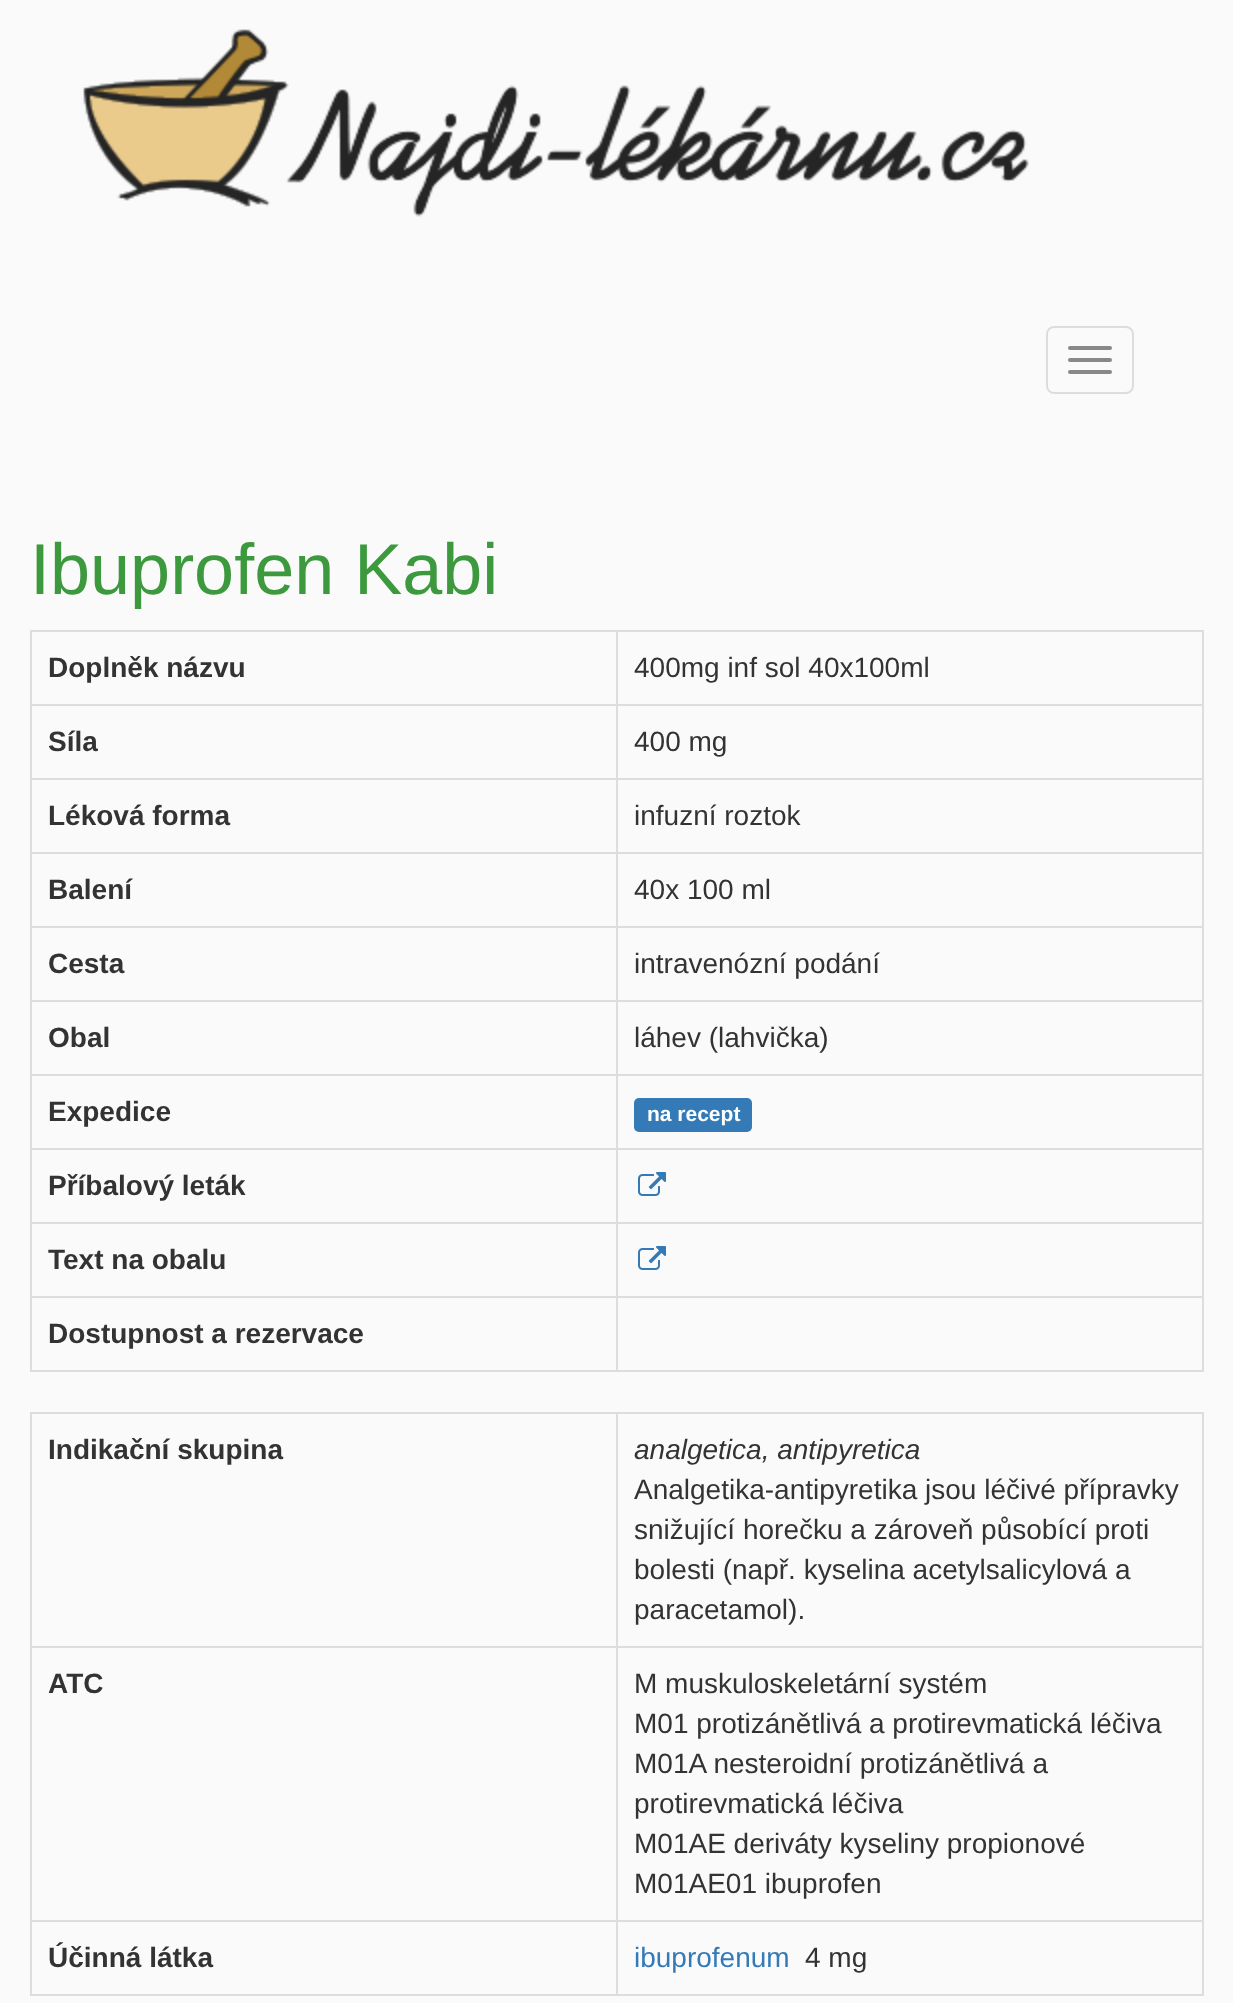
async function draw(canvas) {
  canvas.width = 1233
  canvas.height = 2003
  const ctx = canvas.getContext('2d')
  ctx.miterLimit = 4
  ctx.fontKerning = 'normal'
  async function loadImage(src) {
    const img = new Image()
    img.src = src
    await img.decode()
    return img
  }

  ctx.fillStyle = '#fafafa'
  ctx.fillRect(0, 0, 1233, 2003)
  ctx.drawImage(await loadImage('image0.png'), 83, 29, 946, 188)
  ctx.beginPath()
  ctx.roundRect(1047, 327, 86, 66, 7)
  ctx.strokeStyle = '#ddd'
  ctx.lineWidth = 2
  ctx.stroke()
  ctx.fillStyle = '#888'
  ctx.beginPath()
  ctx.roundRect(1068, 346, 44, 4, 2)
  ctx.fill()
  ctx.beginPath()
  ctx.roundRect(1068, 358, 44, 4, 2)
  ctx.fill()
  ctx.beginPath()
  ctx.roundRect(1068, 370, 44, 4, 2)
  ctx.fill()
  ctx.font = '72px Liberation Sans'
  ctx.fillStyle = '#3d993d'
  ctx.fillText('Ibuprofen Kabi', 30, 594)
  ctx.fillStyle = '#ddd'
  ctx.fillRect(30, 630, 1174, 2)
  ctx.fillRect(1202, 630, 2, 742)
  ctx.fillRect(30, 1370, 1174, 2)
  ctx.fillRect(30, 630, 2, 742)
  ctx.font = 'bold 28px Liberation Sans'
  ctx.fillStyle = '#333'
  ctx.fillText('Doplněk názvu', 48, 677)
  ctx.fillStyle = '#ddd'
  ctx.fillRect(616, 704, 588, 2)
  ctx.fillRect(616, 778, 588, 2)
  ctx.fillRect(616, 852, 588, 2)
  ctx.fillRect(616, 926, 588, 2)
  ctx.fillRect(616, 1000, 588, 2)
  ctx.fillRect(616, 1074, 588, 2)
  ctx.fillRect(616, 1148, 588, 2)
  ctx.fillRect(616, 1222, 588, 2)
  ctx.fillRect(616, 1296, 588, 2)
  ctx.fillRect(616, 1296, 2, 76)
  ctx.fillRect(30, 1296, 588, 2)
  ctx.fillRect(616, 1222, 2, 76)
  ctx.fillRect(30, 1222, 588, 2)
  ctx.fillRect(616, 1148, 2, 76)
  ctx.fillRect(30, 1148, 588, 2)
  ctx.fillRect(616, 1074, 2, 76)
  ctx.fillRect(30, 1074, 588, 2)
  ctx.fillRect(616, 1000, 2, 76)
  ctx.fillRect(30, 1000, 588, 2)
  ctx.fillRect(616, 926, 2, 76)
  ctx.fillRect(30, 926, 588, 2)
  ctx.fillRect(616, 852, 2, 76)
  ctx.fillRect(30, 852, 588, 2)
  ctx.fillRect(616, 778, 2, 76)
  ctx.fillRect(30, 778, 588, 2)
  ctx.fillRect(616, 704, 2, 76)
  ctx.fillRect(30, 704, 588, 2)
  ctx.fillRect(616, 630, 2, 76)
  ctx.font = '28px Liberation Sans'
  ctx.fillStyle = '#333'
  ctx.fillText('400mg inf sol 40x100ml', 634, 677)
  ctx.font = 'bold 28px Liberation Sans'
  ctx.fillText('Síla', 48, 751)
  ctx.font = '28px Liberation Sans'
  ctx.fillText('400 mg', 634, 751)
  ctx.font = 'bold 28px Liberation Sans'
  ctx.fillText('Léková forma', 48, 825)
  ctx.font = '28px Liberation Sans'
  ctx.fillText('infuzní roztok', 634, 825)
  ctx.font = 'bold 28px Liberation Sans'
  ctx.fillText('Balení', 48, 899)
  ctx.font = '28px Liberation Sans'
  ctx.fillText('40x 100 ml', 634, 899)
  ctx.font = 'bold 28px Liberation Sans'
  ctx.fillText('Cesta', 48, 973)
  ctx.font = '28px Liberation Sans'
  ctx.fillText('intravenózní podání', 634, 973)
  ctx.font = 'bold 28px Liberation Sans'
  ctx.fillText('Obal', 48, 1047)
  ctx.font = '28px Liberation Sans'
  ctx.fillText('láhev (lahvička)', 634, 1047)
  ctx.font = 'bold 28px Liberation Sans'
  ctx.fillText('Expedice', 48, 1121)
  ctx.fillStyle = '#337ab7'
  ctx.beginPath()
  ctx.roundRect(634, 1098, 118, 34, 5)
  ctx.fill()
  ctx.font = 'bold 21px Liberation Sans'
  ctx.fillStyle = '#fff'
  ctx.fillText('na recept', 647, 1121)
  ctx.font = 'bold 28px Liberation Sans'
  ctx.fillStyle = '#333'
  ctx.fillText('Příbalový leták', 48, 1195)
  ctx.drawImage(await loadImage('image1.png'), 638, 1172, 28, 24)
  ctx.fillText('Text na obalu', 48, 1269)
  ctx.drawImage(await loadImage('image1.png'), 638, 1246, 28, 24)
  ctx.fillText('Dostupnost a rezervace', 48, 1343)
  ctx.fillStyle = '#ddd'
  ctx.fillRect(616, 1412, 588, 2)
  ctx.fillRect(616, 1646, 588, 2)
  ctx.fillRect(616, 1920, 588, 2)
  ctx.fillRect(1202, 1920, 2, 76)
  ctx.fillRect(616, 1994, 588, 2)
  ctx.fillRect(616, 1920, 2, 76)
  ctx.fillRect(30, 1920, 588, 2)
  ctx.fillRect(616, 1646, 2, 276)
  ctx.fillRect(30, 1646, 588, 2)
  ctx.fillRect(616, 1412, 2, 236)
  ctx.fillRect(30, 1412, 588, 2)
  ctx.fillRect(30, 1994, 588, 2)
  ctx.fillRect(30, 1920, 2, 76)
  ctx.fillRect(30, 1646, 2, 276)
  ctx.fillRect(30, 1412, 2, 236)
  ctx.fillStyle = '#333'
  ctx.fillText('Indikační skupina', 48, 1459)
  ctx.fillStyle = '#ddd'
  ctx.fillRect(1202, 1646, 2, 276)
  ctx.fillRect(1202, 1412, 2, 236)
  ctx.font = 'italic 28px Liberation Sans'
  ctx.fillStyle = '#333'
  ctx.fillText('analgetica, antipyretica', 634, 1459)
  ctx.font = '28px Liberation Sans'
  ctx.fillText('Analgetika-antipyretika jsou léčivé přípravky', 634, 1499)
  ctx.fillText('snižující horečku a zároveň působící proti', 634, 1539)
  ctx.fillText('bolesti (např. kyselina acetylsalicylová a', 634, 1579)
  ctx.fillText('paracetamol).', 634, 1619)
  ctx.font = 'bold 28px Liberation Sans'
  ctx.fillText('ATC', 48, 1693)
  ctx.font = '28px Liberation Sans'
  ctx.fillText('M muskuloskeletární systém', 634, 1693)
  ctx.fillText('M01 protizánětlivá a protirevmatická léčiva', 634, 1733)
  ctx.fillText('M01A nesteroidní protizánětlivá a', 634, 1773)
  ctx.fillText('protirevmatická léčiva', 634, 1813)
  ctx.fillText('M01AE deriváty kyseliny propionové', 634, 1853)
  ctx.fillText('M01AE01 ibuprofen', 634, 1893)
  ctx.font = 'bold 28px Liberation Sans'
  ctx.fillText('Účinná látka', 48, 1967)
  ctx.font = '28px Liberation Sans'
  ctx.fillStyle = '#337ab7'
  ctx.fillText('ibuprofenum', 634, 1967)
  ctx.fillStyle = '#333'
  ctx.fillText('4 mg', 805, 1967)
}

draw(document.querySelector('canvas'))
